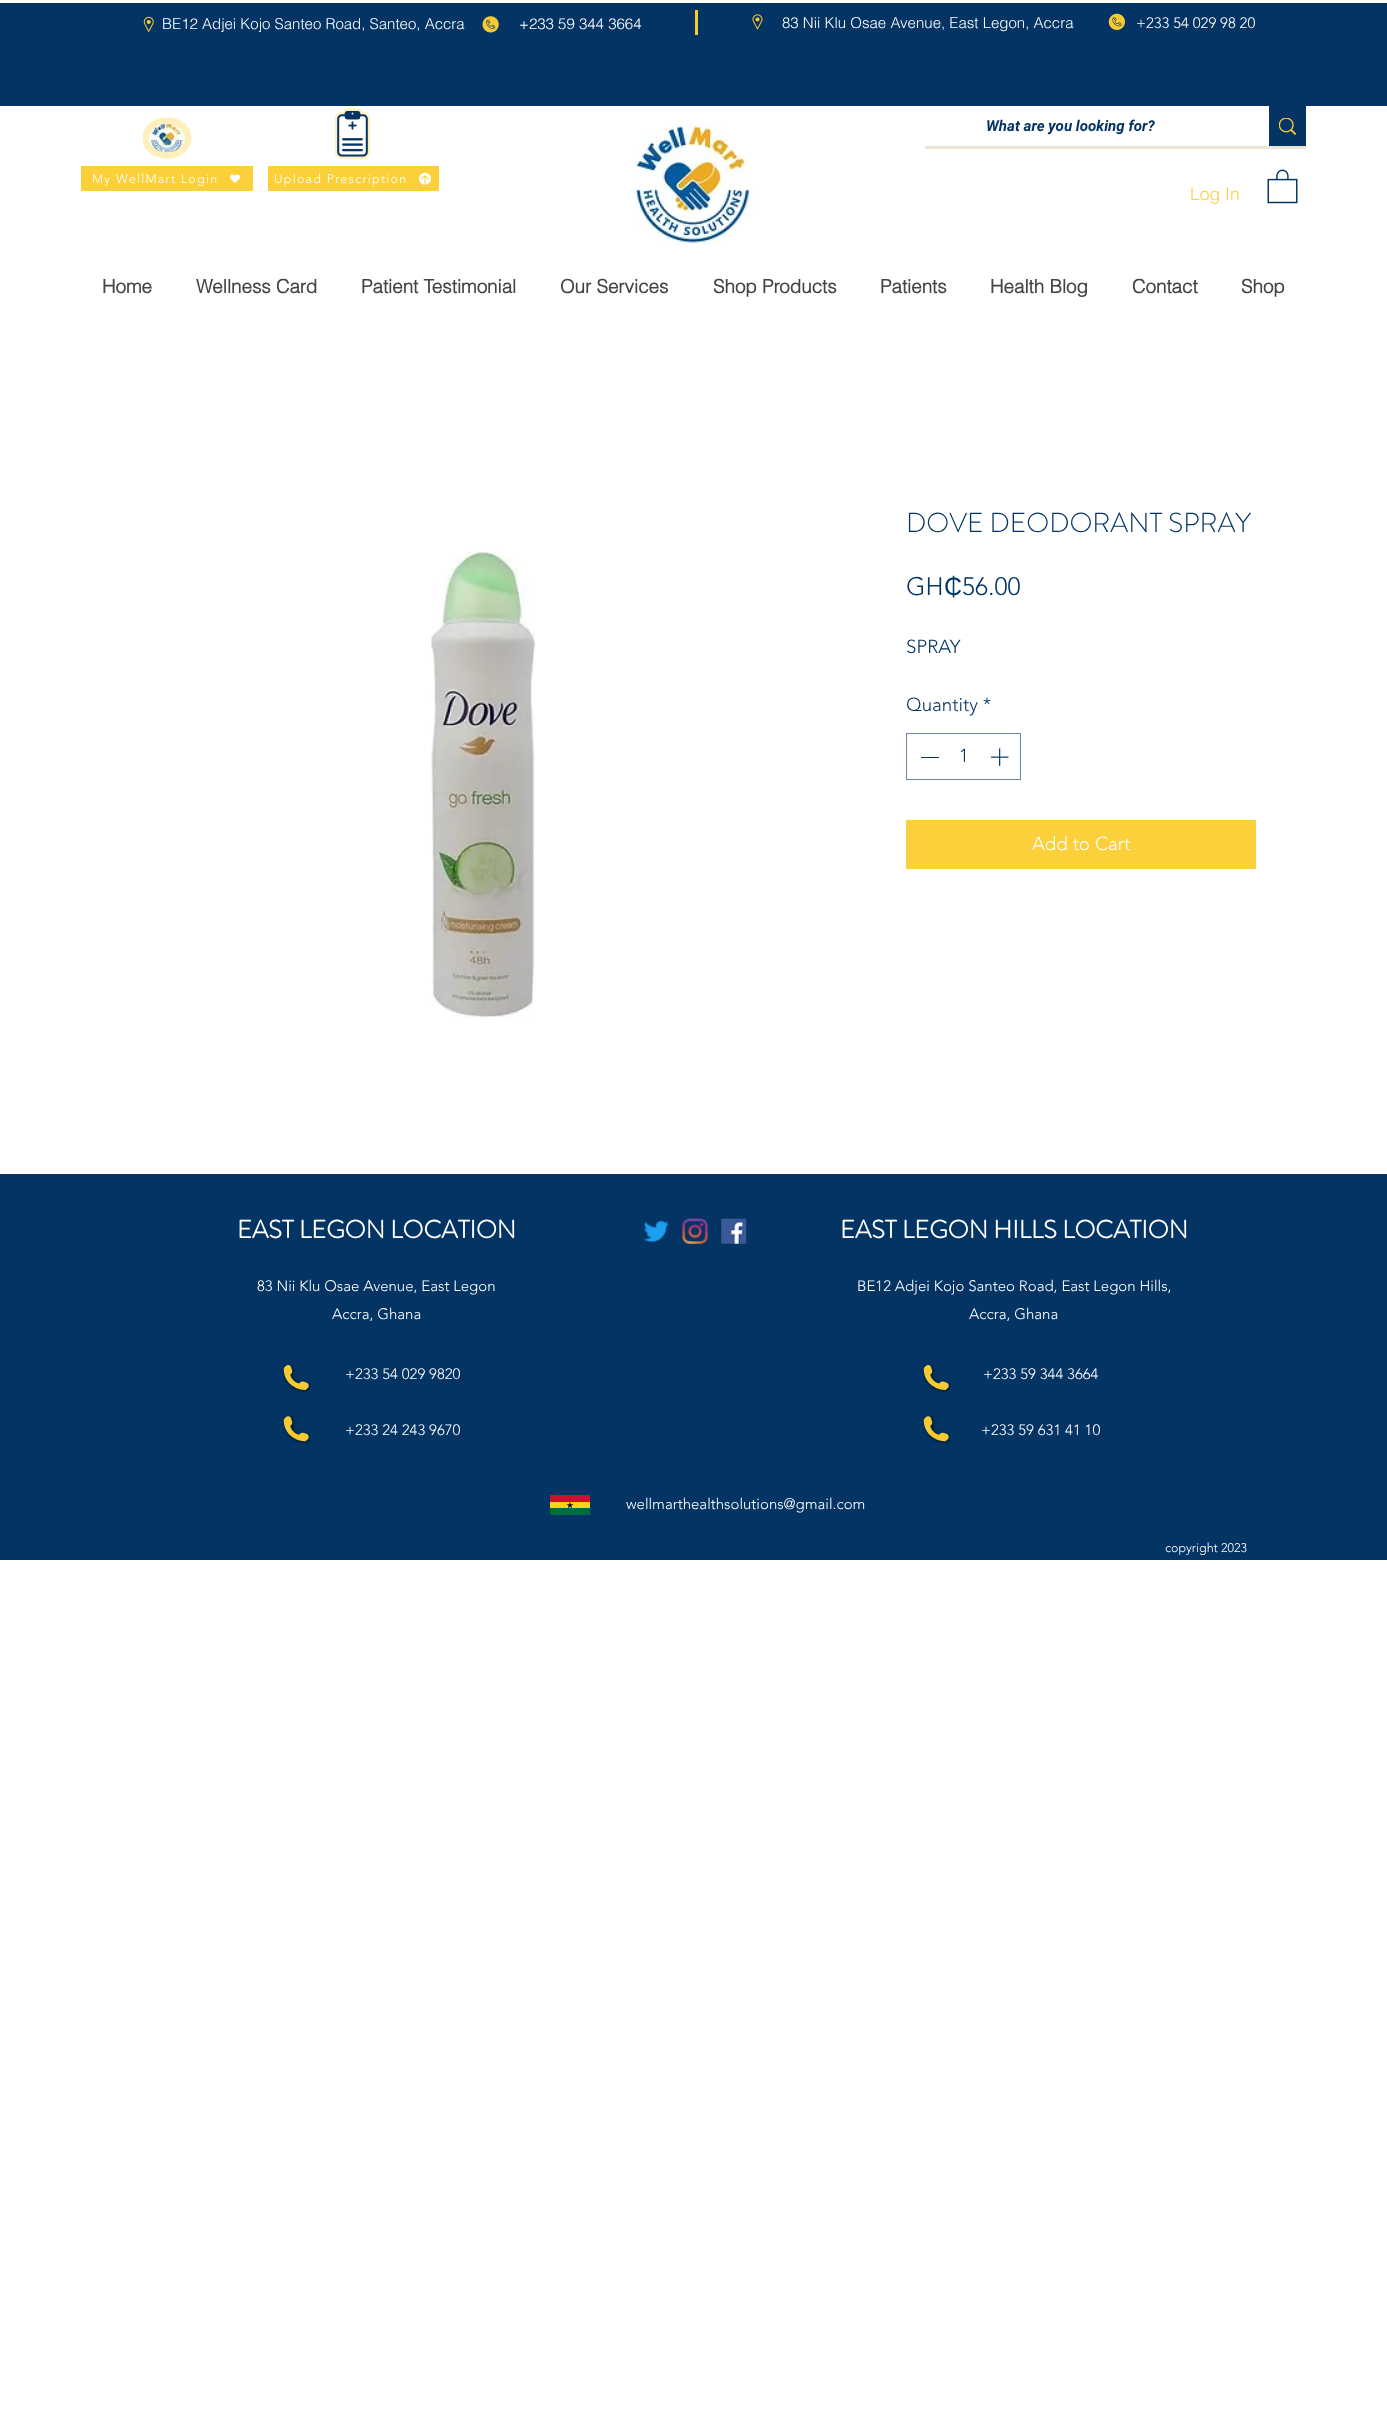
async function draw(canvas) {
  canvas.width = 1387
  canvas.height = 2435
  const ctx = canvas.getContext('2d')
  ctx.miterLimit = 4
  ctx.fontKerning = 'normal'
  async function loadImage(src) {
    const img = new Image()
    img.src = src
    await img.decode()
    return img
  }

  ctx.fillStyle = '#fff'
  ctx.fillRect(0, 0, 1387, 2435)
  ctx.fillStyle = '#043464'
  ctx.fillRect(0, 3, 1387, 103)
  ctx.drawImage(await loadImage('image0.png'), 143, 16, 11, 16)
  ctx.font = '300 15px helvetica'
  ctx.fillStyle = '#fff'
  ctx.fillText('BE12 Adjei Kojo Santeo Road, Santeo, Accra', 162, 29)
  ctx.drawImage(await loadImage('image1.png'), 482, 16, 17, 17)
  ctx.fillText('+233 59 344 3664', 519, 29)
  ctx.fillStyle = '#f7ca34'
  ctx.fillRect(695, 10, 3, 25)
  ctx.drawImage(await loadImage('image2.png'), 752, 14, 11, 16)
  ctx.fillStyle = '#fff'
  ctx.fillText('83 Nii Klu Osae Avenue, East Legon, Accra', 782, 28)
  ctx.drawImage(await loadImage('image3.png'), 1108, 13, 17, 17)
  ctx.font = '300 15px "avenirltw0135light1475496"'
  ctx.fillText('+233 54 029 98 20', 1136, 28)
  ctx.fillStyle = '#feefbd'
  ctx.beginPath()
  ctx.ellipse(167, 138, 24.5, 20.5, 0, 0, 2 * Math.PI)
  ctx.fill()
  ctx.beginPath()
  ctx.moveTo(167, 120.5)
  ctx.bezierCurveTo(195, 120.5, 195, 155.5, 167, 155.5)
  ctx.bezierCurveTo(139, 155.5, 139, 120.5, 167, 120.5)
  ctx.closePath()
  ctx.strokeStyle = '#feefbd'
  ctx.lineWidth = 6.2
  ctx.stroke()
  ctx.drawImage(await loadImage('image4.png'), 149, 124, 36, 29)
  ctx.drawImage(await loadImage('image5.png'), 335, 108, 35, 51)
  ctx.drawImage(await loadImage('image6.png'), 634, 124, 121, 121)
  ctx.fillStyle = '#ebe5d6'
  ctx.fillRect(925, 146, 381, 3)
  ctx.font = 'italic bold 15px Roboto'
  ctx.fillStyle = '#043464'
  ctx.fillText('What are you looking for?', 986, 131)
  ctx.fillRect(1269, 106, 37, 40)
  ctx.drawImage(await loadImage('image7.png'), 1279, 118, 17, 17)
  ctx.drawImage(await loadImage('image8.png'), 1267, 169, 31, 35)
  ctx.fillStyle = '#fbd03a'
  ctx.fillRect(81, 166, 172, 25)
  ctx.letterSpacing = '1.25px'
  ctx.font = '300 12.5px "avenirltw0135light1475496"'
  ctx.fillStyle = '#fff'
  ctx.fillText('My WellMart Login', 92, 183)
  ctx.drawImage(await loadImage('image9.png'), 230, 174, 10, 9)
  ctx.fillStyle = '#fbd03a'
  ctx.fillRect(268, 166, 171, 25)
  ctx.fillStyle = '#fff'
  ctx.fillText('Upload Prescription', 274, 183)
  ctx.drawImage(await loadImage('image10.png'), 419, 172, 12, 13)
  ctx.letterSpacing = '0px'
  ctx.font = '300 17.5px helvetica'
  ctx.fillStyle = '#fbd03a'
  ctx.fillText('Log In', 1190, 200)
  ctx.font = 'bold 18.75px helvetica'
  ctx.fillStyle = '#444'
  ctx.fillText('Home', 102, 293)
  ctx.fillText('Wellness Card', 196, 293)
  ctx.fillText('Patient Testimonial', 361, 293)
  ctx.fillText('Our Services', 560, 293)
  ctx.fillText('Shop Products', 713, 293)
  ctx.fillText('Patients', 880, 293)
  ctx.fillText('Health Blog', 990, 293)
  ctx.fillText('Contact', 1132, 293)
  ctx.fillText('Shop', 1241, 293)
  ctx.drawImage(await loadImage('image11.png'), 431, 551, 105, 467)
  ctx.font = '300 27.5px "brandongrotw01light"'
  ctx.fillStyle = '#043464'
  ctx.fillText('DOVE DEODORANT SPRAY', 906, 532)
  ctx.font = '300 25px "avenirltw0135light1475496"'
  ctx.fillText('GH', 906, 595)
  ctx.font = '25px Liberation Sans'
  ctx.fillText('₵', 944, 595)
  ctx.font = '300 25px "avenirltw0135light1475496"'
  ctx.fillText('56.00', 962, 595)
  ctx.font = '300 18.75px "avenirltw0135light1475496"'
  ctx.fillText('SPRAY', 906, 653)
  ctx.fillText('Quantity *', 906, 711)
  ctx.strokeStyle = '#6885a2'
  ctx.lineWidth = 1
  ctx.strokeRect(906.5, 733.5, 114, 46)
  ctx.fillRect(921, 757, 18, 1)
  ctx.fillText('1', 959, 762)
  ctx.drawImage(await loadImage('image12.png'), 990, 748, 19, 18)
  ctx.fillStyle = '#fbd03a'
  ctx.fillRect(906, 820, 350, 49)
  ctx.fillStyle = '#fff'
  ctx.fillText('Add to Cart', 1032, 850)
  ctx.fillStyle = '#043464'
  ctx.fillRect(0, 1174, 1387, 386)
  ctx.font = 'bold 25px "brandongrotw01light"'
  ctx.fillStyle = '#fff'
  ctx.fillText('EAST LEGON LOCATION', 237, 1238)
  ctx.drawImage(await loadImage('image13.png'), 643, 1220, 26, 23)
  ctx.drawImage(await loadImage('image14.png'), 682, 1218, 26, 26)
  ctx.drawImage(await loadImage('image15.png'), 721, 1218, 26, 26)
  ctx.fillText('EAST LEGON HILLS LOCATION', 840, 1238)
  ctx.font = '300 15px "avenirltw0135light1475496"'
  ctx.fillText('83 Nii Klu Osae Avenue, East Legon', 257, 1291)
  ctx.fillText('Accra, Ghana', 332, 1319)
  ctx.fillText('BE12 Adjei Kojo Santeo Road, East Legon Hills,', 857, 1291)
  ctx.fillText('Accra, Ghana', 969, 1319)
  ctx.drawImage(await loadImage('image16.png'), 282, 1364, 28, 28)
  ctx.fillText('+233 54 029 9820', 345, 1379)
  ctx.drawImage(await loadImage('image16.png'), 922, 1364, 28, 28)
  ctx.fillText('+233 59 344 3664', 983, 1379)
  ctx.drawImage(await loadImage('image17.png'), 282, 1415, 28, 29)
  ctx.fillText('+233 24 243 9670', 345, 1435)
  ctx.drawImage(await loadImage('image17.png'), 922, 1415, 28, 29)
  ctx.fillText('+233 59 631 41 10', 981, 1435)
  ctx.drawImage(await loadImage('image18.png'), 550, 1495, 40, 20)
  ctx.fillText('wellmarthealthsolutions@gmail.com', 626, 1509)
  ctx.font = '300 12.5px "avenirltw0135light1475496"'
  ctx.fillText('copyright 2023', 1165, 1552)
}

draw(document.querySelector('canvas'))
